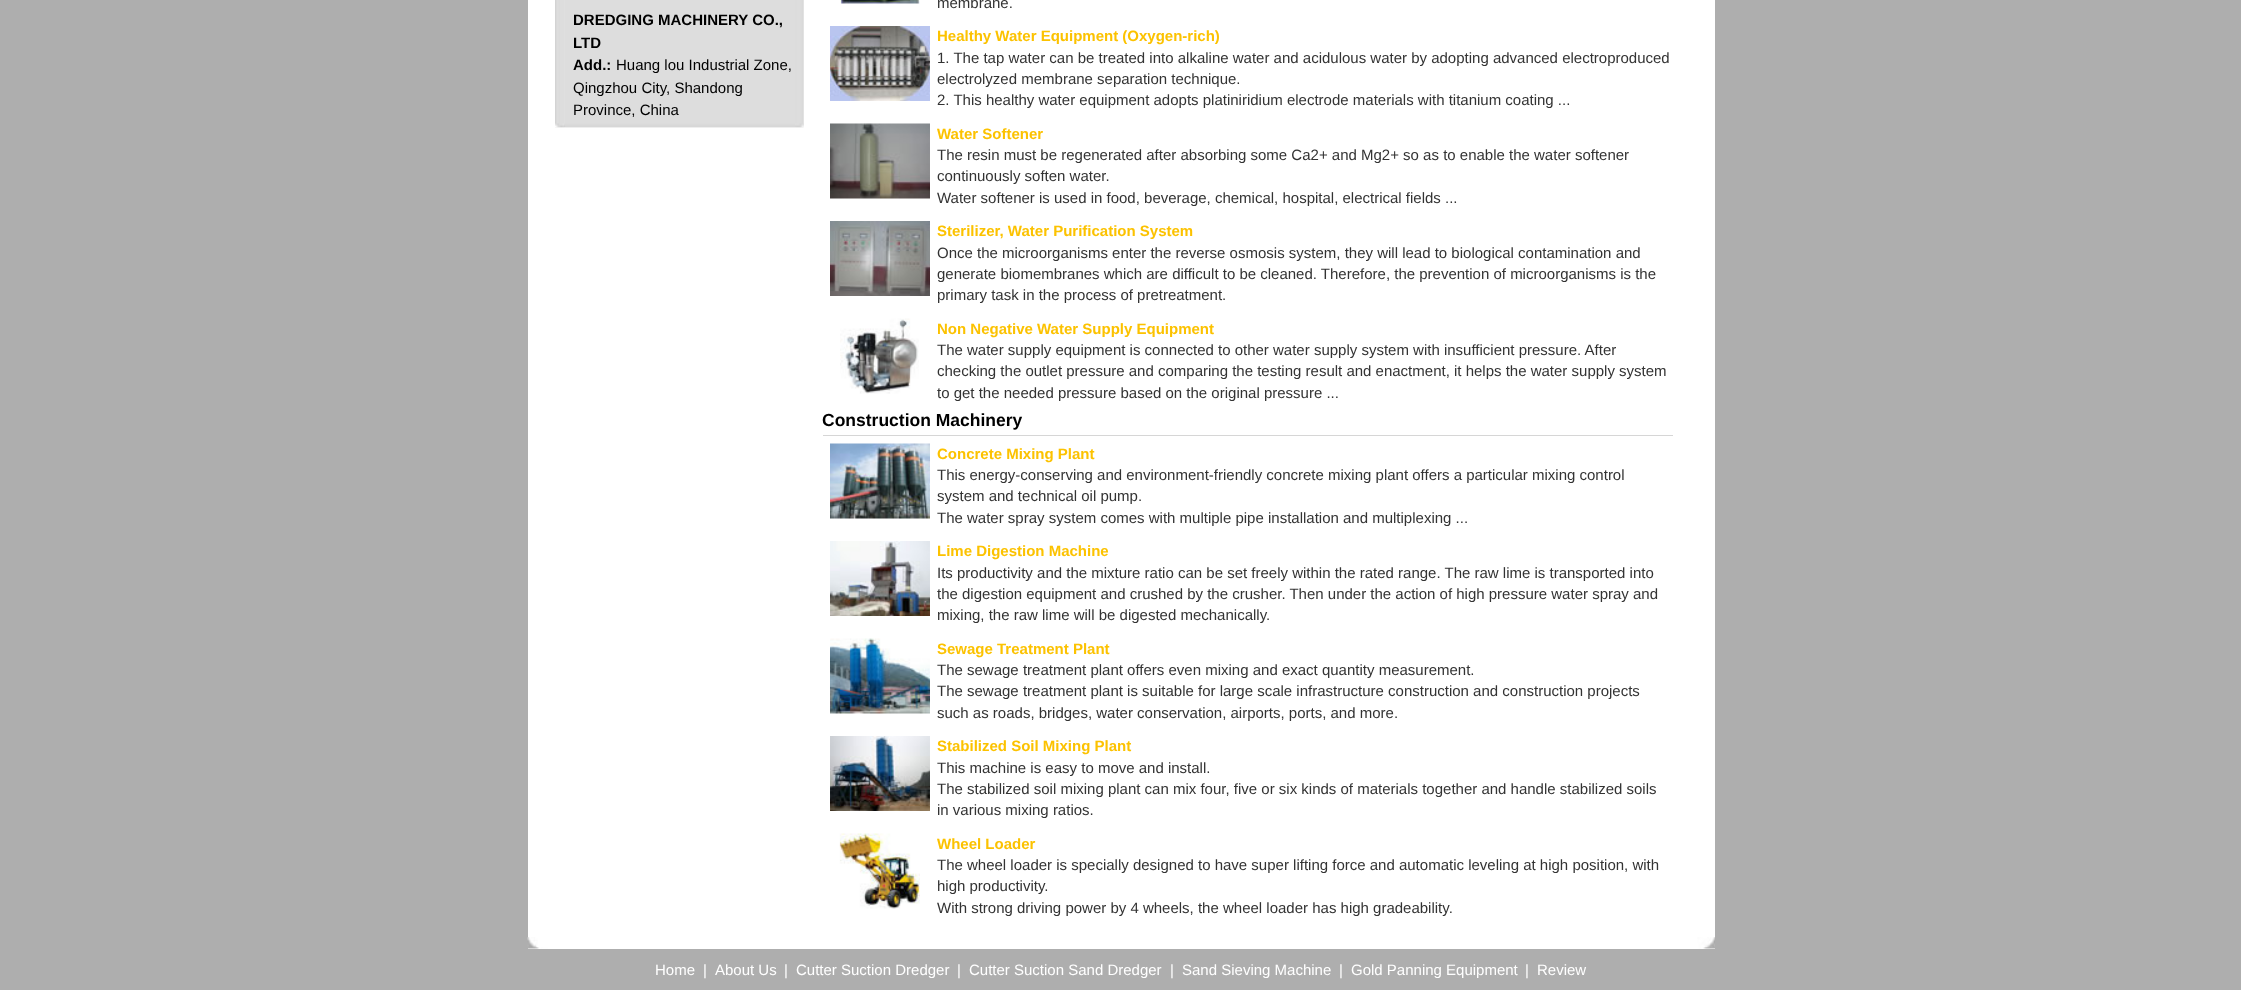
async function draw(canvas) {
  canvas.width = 2241
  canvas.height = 990
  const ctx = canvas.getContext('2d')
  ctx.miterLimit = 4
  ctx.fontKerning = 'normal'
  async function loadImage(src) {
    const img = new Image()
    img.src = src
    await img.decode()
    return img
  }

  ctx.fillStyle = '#aeaeae'
  ctx.fillRect(0, 0, 2241, 990)
  ctx.fillStyle = '#fff'
  ctx.fillRect(528, 0, 1187, 949)
  ctx.drawImage(await loadImage('image0.png'), 527, 937, 1188, 12)
  ctx.drawImage(await loadImage('image1.png'), 555, 0, 249, 128)
  ctx.drawImage(await loadImage('image2.png'), 555, 123, 249, 5)
  ctx.font = 'bold 15px Liberation Sans'
  ctx.fillStyle = '#000'
  ctx.fillText('DREDGING MACHINERY CO.,', 573, 25)
  ctx.fillText('LTD', 573, 48)
  ctx.fillText('Add.:', 573, 70)
  ctx.font = '15px Liberation Sans'
  ctx.fillText('Huang lou Industrial Zone,', 616, 70)
  ctx.fillText('Qingzhou City, Shandong', 573, 93)
  ctx.fillText('Province, China', 573, 115)
  ctx.drawImage(await loadImage('image3.png'), 840, 0, 80, 4)
  ctx.fillStyle = '#333'
  ctx.fillText('membrane.', 937, 8)
  ctx.drawImage(await loadImage('image4.png'), 830, 26, 100, 75)
  ctx.font = 'bold 15px Liberation Sans'
  ctx.fillStyle = '#fcc200'
  ctx.fillText('Healthy Water Equipment (Oxygen-rich)', 937, 41)
  ctx.font = '15px Liberation Sans'
  ctx.fillStyle = '#333'
  ctx.fillText('1. The tap water can be treated into alkaline water and acidulous water by adopting advanced electroproduced', 937, 63)
  ctx.fillText('electrolyzed membrane separation technique.', 937, 84)
  ctx.fillText('2. This healthy water equipment adopts platiniridium electrode materials with titanium coating ...', 937, 105)
  ctx.drawImage(await loadImage('image5.png'), 830, 123, 100, 76)
  ctx.font = 'bold 15px Liberation Sans'
  ctx.fillStyle = '#fcc200'
  ctx.fillText('Water Softener', 937, 139)
  ctx.font = '15px Liberation Sans'
  ctx.fillStyle = '#333'
  ctx.fillText('The resin must be regenerated after absorbing some Ca2+ and Mg2+ so as to enable the water softener', 937, 160)
  ctx.fillText('continuously soften water.', 937, 181)
  ctx.fillText('Water softener is used in food, beverage, chemical, hospital, electrical fields ...', 937, 203)
  ctx.drawImage(await loadImage('image6.png'), 830, 221, 100, 75)
  ctx.font = 'bold 15px Liberation Sans'
  ctx.fillStyle = '#fcc200'
  ctx.fillText('Sterilizer, Water Purification System', 937, 236)
  ctx.font = '15px Liberation Sans'
  ctx.fillStyle = '#333'
  ctx.fillText('Once the microorganisms enter the reverse osmosis system, they will lead to biological contamination and', 937, 258)
  ctx.fillText('generate biomembranes which are difficult to be cleaned. Therefore, the prevention of microorganisms is the', 937, 279)
  ctx.fillText('primary task in the process of pretreatment.', 937, 300)
  ctx.drawImage(await loadImage('image7.png'), 840, 318, 79, 76)
  ctx.font = 'bold 15px Liberation Sans'
  ctx.fillStyle = '#fcc200'
  ctx.fillText('Non Negative Water Supply Equipment', 937, 334)
  ctx.font = '15px Liberation Sans'
  ctx.fillStyle = '#333'
  ctx.fillText('The water supply equipment is connected to other water supply system with insufficient pressure. After', 937, 355)
  ctx.fillText('checking the outlet pressure and comparing the testing result and enactment, it helps the water supply system', 937, 376)
  ctx.fillText('to get the needed pressure based on the original pressure ...', 937, 398)
  ctx.fillStyle = '#d6d6d6'
  ctx.fillRect(823, 435, 850, 1)
  ctx.font = 'bold 17.5px Liberation Sans'
  ctx.fillStyle = '#000'
  ctx.fillText('Construction Machinery', 822, 426)
  ctx.drawImage(await loadImage('image8.png'), 830, 443, 100, 76)
  ctx.font = 'bold 15px Liberation Sans'
  ctx.fillStyle = '#fcc200'
  ctx.fillText('Concrete Mixing Plant', 937, 459)
  ctx.font = '15px Liberation Sans'
  ctx.fillStyle = '#333'
  ctx.fillText('This energy-conserving and environment-friendly concrete mixing plant offers a particular mixing control', 937, 480)
  ctx.fillText('system and technical oil pump.', 937, 501)
  ctx.fillText('The water spray system comes with multiple pipe installation and multiplexing ...', 937, 523)
  ctx.drawImage(await loadImage('image9.png'), 830, 541, 100, 75)
  ctx.font = 'bold 15px Liberation Sans'
  ctx.fillStyle = '#fcc200'
  ctx.fillText('Lime Digestion Machine', 937, 556)
  ctx.font = '15px Liberation Sans'
  ctx.fillStyle = '#333'
  ctx.fillText('Its productivity and the mixture ratio can be set freely within the rated range. The raw lime is transported into', 937, 578)
  ctx.fillText('the digestion equipment and crushed by the crusher. Then under the action of high pressure water spray and', 937, 599)
  ctx.fillText('mixing, the raw lime will be digested mechanically.', 937, 620)
  ctx.drawImage(await loadImage('image10.png'), 830, 638, 100, 76)
  ctx.font = 'bold 15px Liberation Sans'
  ctx.fillStyle = '#fcc200'
  ctx.fillText('Sewage Treatment Plant', 937, 654)
  ctx.font = '15px Liberation Sans'
  ctx.fillStyle = '#333'
  ctx.fillText('The sewage treatment plant offers even mixing and exact quantity measurement.', 937, 675)
  ctx.fillText('The sewage treatment plant is suitable for large scale infrastructure construction and construction projects', 937, 696)
  ctx.fillText('such as roads, bridges, water conservation, airports, ports, and more.', 937, 718)
  ctx.drawImage(await loadImage('image11.png'), 830, 736, 100, 75)
  ctx.font = 'bold 15px Liberation Sans'
  ctx.fillStyle = '#fcc200'
  ctx.fillText('Stabilized Soil Mixing Plant', 937, 751)
  ctx.font = '15px Liberation Sans'
  ctx.fillStyle = '#333'
  ctx.fillText('This machine is easy to move and install.', 937, 773)
  ctx.fillText('The stabilized soil mixing plant can mix four, five or six kinds of materials together and handle stabilized soils', 937, 794)
  ctx.fillText('in various mixing ratios.', 937, 815)
  ctx.drawImage(await loadImage('image12.png'), 839, 833, 81, 76)
  ctx.font = 'bold 15px Liberation Sans'
  ctx.fillStyle = '#fcc200'
  ctx.fillText('Wheel Loader', 937, 849)
  ctx.font = '15px Liberation Sans'
  ctx.fillStyle = '#333'
  ctx.fillText('The wheel loader is specially designed to have super lifting force and automatic leveling at high position, with', 937, 870)
  ctx.fillText('high productivity.', 937, 891)
  ctx.fillText('With strong driving power by 4 wheels, the wheel loader has high gradeability.', 937, 913)
  ctx.fillStyle = '#fff'
  ctx.fillText('Home', 655, 975)
  ctx.fillText('|', 703, 975)
  ctx.fillText('About Us', 715, 975)
  ctx.fillText('|', 784, 975)
  ctx.fillText('Cutter Suction Dredger', 796, 975)
  ctx.fillText('|', 957, 975)
  ctx.fillText('Cutter Suction Sand Dredger', 969, 975)
  ctx.fillText('|', 1170, 975)
  ctx.fillText('Sand Sieving Machine', 1182, 975)
  ctx.fillText('|', 1339, 975)
  ctx.fillText('Gold Panning Equipment', 1351, 975)
  ctx.fillText('|', 1525, 975)
  ctx.fillText('Review', 1537, 975)
}

draw(document.querySelector('canvas'))
